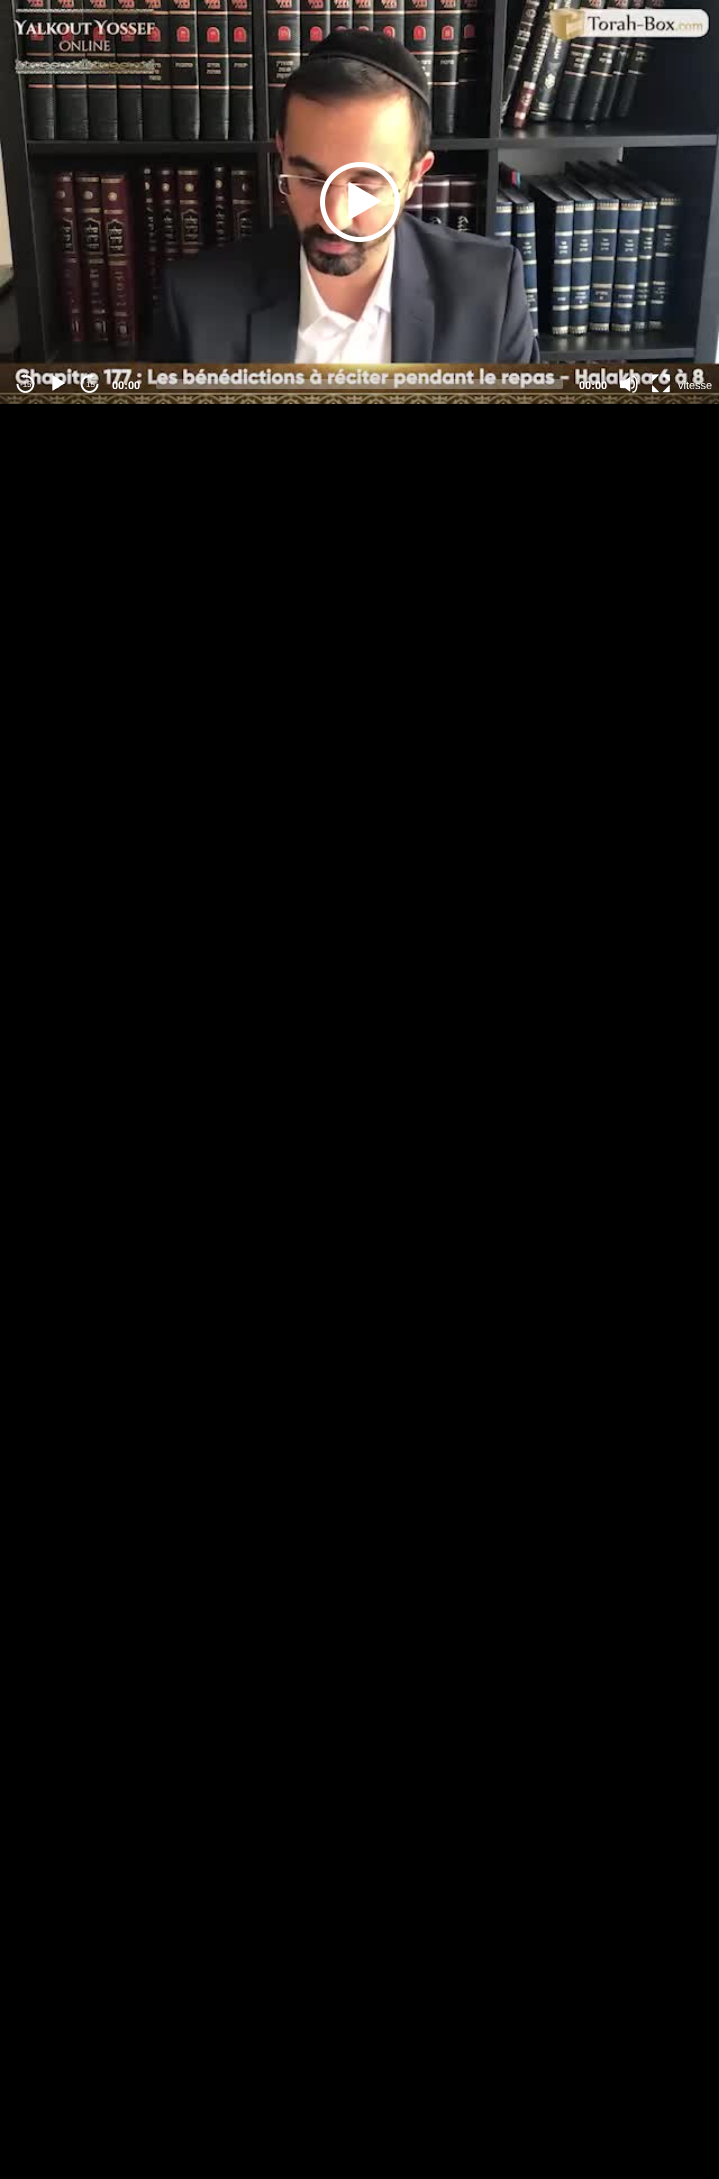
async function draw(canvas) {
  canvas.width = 719
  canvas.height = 2179
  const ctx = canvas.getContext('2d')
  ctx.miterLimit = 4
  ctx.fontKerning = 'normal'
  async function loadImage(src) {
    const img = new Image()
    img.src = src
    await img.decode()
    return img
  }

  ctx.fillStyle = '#000'
  ctx.fillRect(0, 0, 719, 2179)
  ctx.drawImage(await loadImage('image0.png'), 0, 0, 719, 404)
  ctx.drawImage(await loadImage('image1.png'), 320, 162, 80, 80)
  ctx.drawImage(await loadImage('image2.png'), 16, 374, 19, 19)
  ctx.font = '8px Liberation Sans'
  ctx.fillStyle = '#fff'
  ctx.fillText('-15', 20, 387)
  ctx.drawImage(await loadImage('image3.png'), 52, 375, 13, 16)
  ctx.drawImage(await loadImage('image4.png'), 80, 374, 19, 19)
  ctx.fillText('15', 86, 387)
  ctx.font = 'bold 11px Liberation Sans'
  ctx.fillText('00:00', 112, 389)
  ctx.fillStyle = '#ffffff4d'
  ctx.beginPath()
  ctx.roundRect(156, 379, 407, 10, 2)
  ctx.fill()
  ctx.fillStyle = '#fff'
  ctx.fillText('00:00', 579, 389)
  ctx.drawImage(await loadImage('image5.png'), 620, 375, 18, 18)
  ctx.drawImage(await loadImage('image6.png'), 652, 374, 18, 19)
  ctx.font = '11px Liberation Sans'
  ctx.fillText('vitesse', 678, 389)
}

draw(document.querySelector('canvas'))
